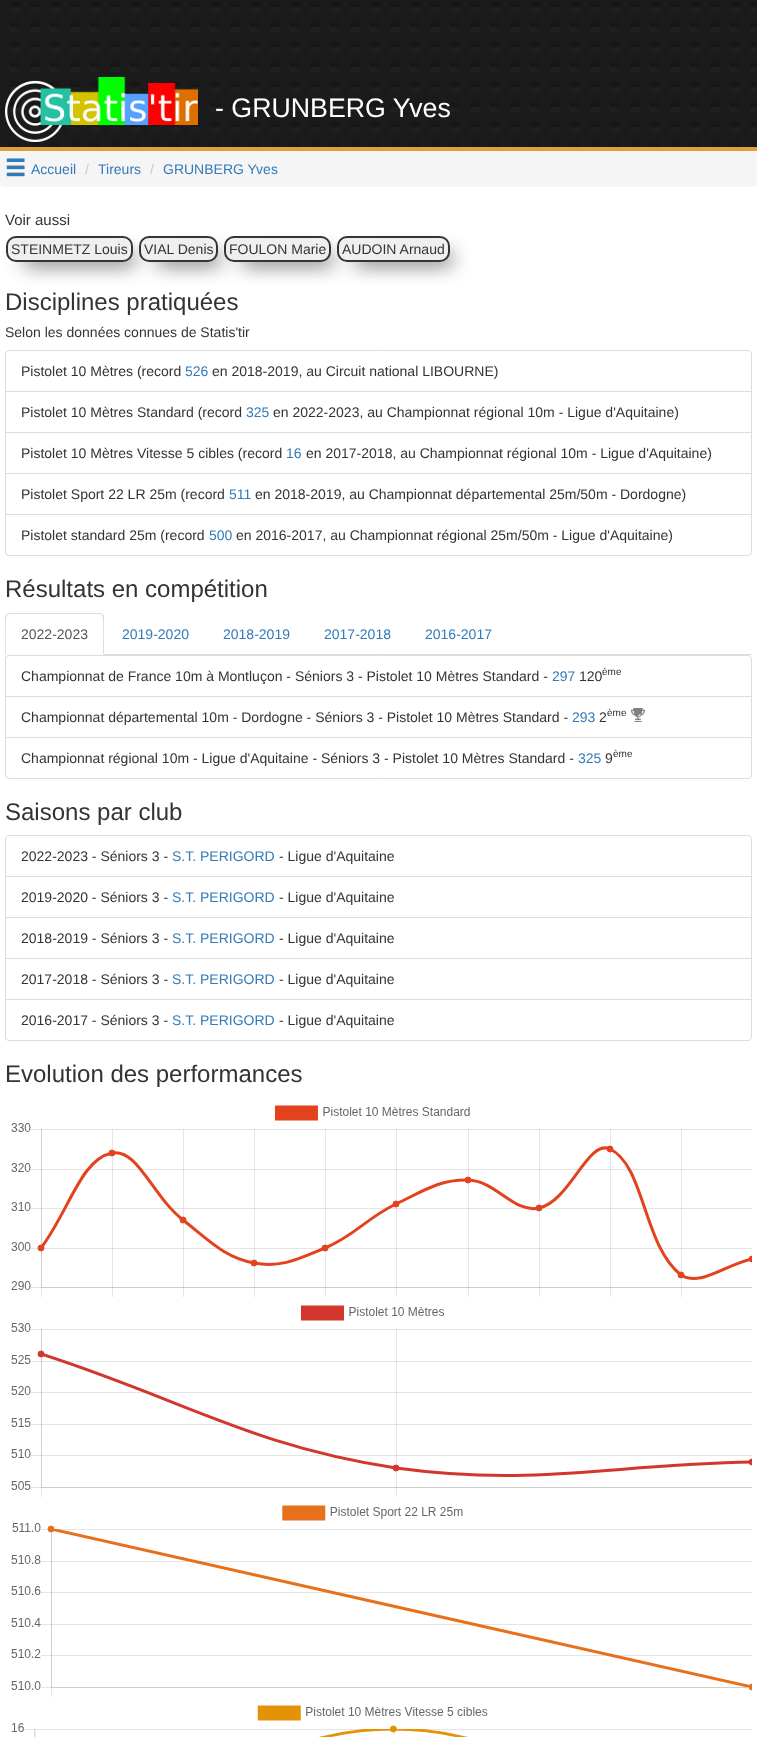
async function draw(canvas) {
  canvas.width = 757
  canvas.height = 1737
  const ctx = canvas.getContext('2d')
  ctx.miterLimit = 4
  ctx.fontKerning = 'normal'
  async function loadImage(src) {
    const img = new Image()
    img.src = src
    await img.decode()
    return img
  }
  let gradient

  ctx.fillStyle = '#fff'
  ctx.fillRect(0, 0, 757, 1737)
  gradient = ctx.createLinearGradient(10, -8, 10, 12)
  gradient.addColorStop(0.25, '#1b1b1b')
  gradient.addColorStop(0.25, '#1a1a1a')
  gradient.addColorStop(0.5, '#1a1a1a')
  gradient.addColorStop(0.5, '#171717')
  gradient.addColorStop(0.75, '#171717')
  gradient.addColorStop(0.75, '#1f1f1f')
  gradient.addColorStop(1, '#1f1f1f')
  ctx.fillStyle = gradient
  ctx.fillRect(0, 0, 757, 12)
  gradient = ctx.createLinearGradient(10, 12, 10, 32)
  gradient.addColorStop(0.25, '#1b1b1b')
  gradient.addColorStop(0.25, '#1a1a1a')
  gradient.addColorStop(0.5, '#1a1a1a')
  gradient.addColorStop(0.5, '#171717')
  gradient.addColorStop(0.75, '#171717')
  gradient.addColorStop(0.75, '#1f1f1f')
  gradient.addColorStop(1, '#1f1f1f')
  ctx.fillStyle = gradient
  ctx.fillRect(10, 12, 747, 20)
  gradient = ctx.createLinearGradient(10, 32, 10, 52)
  gradient.addColorStop(0.25, '#1b1b1b')
  gradient.addColorStop(0.25, '#1a1a1a')
  gradient.addColorStop(0.5, '#1a1a1a')
  gradient.addColorStop(0.5, '#171717')
  gradient.addColorStop(0.75, '#171717')
  gradient.addColorStop(0.75, '#1f1f1f')
  gradient.addColorStop(1, '#1f1f1f')
  ctx.fillStyle = gradient
  ctx.fillRect(10, 32, 747, 20)
  gradient = ctx.createLinearGradient(10, 52, 10, 72)
  gradient.addColorStop(0.25, '#1b1b1b')
  gradient.addColorStop(0.25, '#1a1a1a')
  gradient.addColorStop(0.5, '#1a1a1a')
  gradient.addColorStop(0.5, '#171717')
  gradient.addColorStop(0.75, '#171717')
  gradient.addColorStop(0.75, '#1f1f1f')
  gradient.addColorStop(1, '#1f1f1f')
  ctx.fillStyle = gradient
  ctx.fillRect(10, 52, 747, 20)
  gradient = ctx.createLinearGradient(10, 72, 10, 92)
  gradient.addColorStop(0.25, '#1b1b1b')
  gradient.addColorStop(0.25, '#1a1a1a')
  gradient.addColorStop(0.5, '#1a1a1a')
  gradient.addColorStop(0.5, '#171717')
  gradient.addColorStop(0.75, '#171717')
  gradient.addColorStop(0.75, '#1f1f1f')
  gradient.addColorStop(1, '#1f1f1f')
  ctx.fillStyle = gradient
  ctx.fillRect(10, 72, 747, 20)
  gradient = ctx.createLinearGradient(10, 92, 10, 112)
  gradient.addColorStop(0.25, '#1b1b1b')
  gradient.addColorStop(0.25, '#1a1a1a')
  gradient.addColorStop(0.5, '#1a1a1a')
  gradient.addColorStop(0.5, '#171717')
  gradient.addColorStop(0.75, '#171717')
  gradient.addColorStop(0.75, '#1f1f1f')
  gradient.addColorStop(1, '#1f1f1f')
  ctx.fillStyle = gradient
  ctx.fillRect(10, 92, 747, 20)
  gradient = ctx.createLinearGradient(10, 112, 10, 132)
  gradient.addColorStop(0.25, '#1b1b1b')
  gradient.addColorStop(0.25, '#1a1a1a')
  gradient.addColorStop(0.5, '#1a1a1a')
  gradient.addColorStop(0.5, '#171717')
  gradient.addColorStop(0.75, '#171717')
  gradient.addColorStop(0.75, '#1f1f1f')
  gradient.addColorStop(1, '#1f1f1f')
  ctx.fillStyle = gradient
  ctx.fillRect(10, 112, 747, 20)
  gradient = ctx.createLinearGradient(10, 132, 10, 152)
  gradient.addColorStop(0.25, '#1b1b1b')
  gradient.addColorStop(0.25, '#1a1a1a')
  gradient.addColorStop(0.5, '#1a1a1a')
  gradient.addColorStop(0.5, '#171717')
  gradient.addColorStop(0.75, '#171717')
  gradient.addColorStop(0.75, '#1f1f1f')
  gradient.addColorStop(1, '#1f1f1f')
  ctx.fillStyle = gradient
  ctx.fillRect(10, 132, 747, 15)
  ctx.drawImage(await loadImage('image0.png'), 0, 2, 750, 145)
  ctx.fillStyle = '#e09f3e'
  ctx.fillRect(0, 147, 757, 4)
  ctx.drawImage(await loadImage('image1.png'), 5, 77, 193, 65)
  ctx.font = '26.75px Liberation Sans'
  ctx.fillStyle = '#fff'
  ctx.fillText('- GRUNBERG Yves', 215, 117)
  ctx.fillStyle = '#f5f5f5'
  ctx.beginPath()
  ctx.roundRect(0, 151, 757, 36, 4)
  ctx.fill()
  ctx.drawImage(await loadImage('image2.png'), 6, 158, 19, 19)
  ctx.font = '14px Liberation Sans'
  ctx.fillStyle = '#337ab7'
  ctx.fillText('Accueil', 31, 174)
  ctx.fillStyle = '#ccc'
  ctx.fillText('/', 85, 174)
  ctx.fillStyle = '#337ab7'
  ctx.fillText('Tireurs', 98, 174)
  ctx.fillStyle = '#ccc'
  ctx.fillText('/', 150, 174)
  ctx.fillStyle = '#337ab7'
  ctx.fillText('GRUNBERG Yves', 163, 174)
  ctx.font = '15px Liberation Sans'
  ctx.fillStyle = '#333'
  ctx.fillText('Voir aussi', 5, 225)
  ctx.fillStyle = '#000000bf'
  ctx.filter = 'blur(10px)'
  ctx.beginPath()
  ctx.roundRect(24, 254, 111, 10, 2)
  ctx.fill()
  ctx.filter = 'none'
  ctx.fillStyle = '#efefef'
  ctx.beginPath()
  ctx.roundRect(7, 237, 125, 24, 9)
  ctx.fill()
  ctx.strokeStyle = '#353434'
  ctx.lineWidth = 2
  ctx.stroke()
  ctx.font = '14px Liberation Sans'
  ctx.fillStyle = '#333'
  ctx.fillText('STEINMETZ Louis', 11, 254)
  ctx.fillStyle = '#000000bf'
  ctx.filter = 'blur(10px)'
  ctx.beginPath()
  ctx.roundRect(157, 254, 63, 10, 2)
  ctx.fill()
  ctx.filter = 'none'
  ctx.fillStyle = '#efefef'
  ctx.beginPath()
  ctx.roundRect(140, 237, 77, 24, 9)
  ctx.fill()
  ctx.stroke()
  ctx.fillStyle = '#333'
  ctx.fillText('VIAL Denis', 144, 254)
  ctx.fillStyle = '#000000bf'
  ctx.filter = 'blur(10px)'
  ctx.beginPath()
  ctx.roundRect(242, 254, 91, 10, 2)
  ctx.fill()
  ctx.filter = 'none'
  ctx.fillStyle = '#efefef'
  ctx.beginPath()
  ctx.roundRect(225, 237, 105, 24, 9)
  ctx.fill()
  ctx.stroke()
  ctx.fillStyle = '#333'
  ctx.fillText('FOULON Marie', 229, 254)
  ctx.fillStyle = '#000000bf'
  ctx.filter = 'blur(10px)'
  ctx.beginPath()
  ctx.roundRect(355, 254, 97, 10, 2)
  ctx.fill()
  ctx.filter = 'none'
  ctx.fillStyle = '#efefef'
  ctx.beginPath()
  ctx.roundRect(338, 237, 111, 24, 9)
  ctx.fill()
  ctx.stroke()
  ctx.fillStyle = '#333'
  ctx.fillText('AUDOIN Arnaud', 342, 254)
  ctx.font = '24px Liberation Sans'
  ctx.fillText('Disciplines pratiquées', 5, 310)
  ctx.font = '14px Liberation Sans'
  ctx.fillText('Selon les données connues de Statis\'tir', 5, 337)
  ctx.beginPath()
  ctx.roundRect(5.5, 350.5, 746, 41, [3.5, 3.5, 0, 0])
  ctx.strokeStyle = '#ddd'
  ctx.lineWidth = 1
  ctx.stroke()
  ctx.fillText('Pistolet 10 Mètres (record', 21, 376)
  ctx.fillStyle = '#337ab7'
  ctx.fillText('526', 185, 376)
  ctx.fillStyle = '#333'
  ctx.fillText('en 2018-2019, au Circuit national LIBOURNE)', 212, 376)
  ctx.strokeRect(5.5, 391.5, 746, 41)
  ctx.fillText('Pistolet 10 Mètres Standard (record', 21, 417)
  ctx.fillStyle = '#337ab7'
  ctx.fillText('325', 246, 417)
  ctx.fillStyle = '#333'
  ctx.fillText('en 2022-2023, au Championnat régional 10m - Ligue d\'Aquitaine)', 273, 417)
  ctx.strokeRect(5.5, 432.5, 746, 41)
  ctx.fillText('Pistolet 10 Mètres Vitesse 5 cibles (record', 21, 458)
  ctx.fillStyle = '#337ab7'
  ctx.fillText('16', 286, 458)
  ctx.fillStyle = '#333'
  ctx.fillText('en 2017-2018, au Championnat régional 10m - Ligue d\'Aquitaine)', 306, 458)
  ctx.strokeRect(5.5, 473.5, 746, 41)
  ctx.fillText('Pistolet Sport 22 LR 25m (record', 21, 499)
  ctx.fillStyle = '#337ab7'
  ctx.fillText('511', 229, 499)
  ctx.fillStyle = '#333'
  ctx.fillText('en 2018-2019, au Championnat départemental 25m/50m - Dordogne)', 255, 499)
  ctx.fillStyle = '#fff'
  ctx.beginPath()
  ctx.roundRect(5.5, 514.5, 746, 41, [0, 0, 3.5, 3.5])
  ctx.fill()
  ctx.stroke()
  ctx.fillStyle = '#333'
  ctx.fillText('Pistolet standard 25m (record', 21, 540)
  ctx.fillStyle = '#337ab7'
  ctx.fillText('500', 209, 540)
  ctx.fillStyle = '#333'
  ctx.fillText('en 2016-2017, au Championnat régional 25m/50m - Ligue d\'Aquitaine)', 236, 540)
  ctx.font = '24px Liberation Sans'
  ctx.fillText('Résultats en compétition', 5, 597)
  ctx.fillStyle = '#ddd'
  ctx.fillRect(104, 654, 648, 1)
  ctx.beginPath()
  ctx.moveTo(9, 613)
  ctx.lineTo(6, 614)
  ctx.lineTo(7, 615)
  ctx.lineTo(9, 614)
  ctx.lineTo(100, 614)
  ctx.lineTo(102, 615)
  ctx.lineTo(103, 614)
  ctx.lineTo(100, 613)
  ctx.closePath()
  ctx.fill()
  ctx.beginPath()
  ctx.moveTo(104, 655)
  ctx.lineTo(104, 617)
  ctx.bezierCurveTo(104, 616, 104, 615, 103, 614)
  ctx.lineTo(102, 615)
  ctx.bezierCurveTo(104, 617, 103, 649, 103, 654)
  ctx.closePath()
  ctx.fill()
  ctx.beginPath()
  ctx.moveTo(5, 655)
  ctx.lineTo(6, 654)
  ctx.bezierCurveTo(6, 649, 5, 617, 7, 615)
  ctx.lineTo(6, 614)
  ctx.lineTo(5, 617)
  ctx.closePath()
  ctx.fill()
  ctx.font = '14px Liberation Sans'
  ctx.fillStyle = '#555'
  ctx.fillText('2022-2023', 21, 639)
  ctx.fillStyle = '#337ab7'
  ctx.fillText('2019-2020', 122, 639)
  ctx.fillText('2018-2019', 223, 639)
  ctx.fillText('2017-2018', 324, 639)
  ctx.fillText('2016-2017', 425, 639)
  ctx.beginPath()
  ctx.roundRect(5.5, 655.5, 746, 41, [3.5, 3.5, 0, 0])
  ctx.stroke()
  ctx.fillStyle = '#333'
  ctx.fillText('Championnat de France 10m à Montluçon - Séniors 3 - Pistolet 10 Mètres Standard -', 21, 681)
  ctx.fillStyle = '#337ab7'
  ctx.fillText('297', 552, 681)
  ctx.fillStyle = '#333'
  ctx.fillText('120', 579, 681)
  ctx.font = '10px Liberation Sans'
  ctx.fillText('ème', 602, 675)
  ctx.strokeRect(5.5, 696.5, 746, 41)
  ctx.font = '14px Liberation Sans'
  ctx.fillText('Championnat départemental 10m - Dordogne - Séniors 3 - Pistolet 10 Mètres Standard -', 21, 722)
  ctx.fillStyle = '#337ab7'
  ctx.fillText('293', 572, 722)
  ctx.fillStyle = '#333'
  ctx.fillText('2', 599, 722)
  ctx.font = '10px Liberation Sans'
  ctx.fillText('ème', 607, 716)
  ctx.drawImage(await loadImage('image3.png'), 631, 708, 14, 14)
  ctx.fillStyle = '#fff'
  ctx.beginPath()
  ctx.roundRect(5.5, 737.5, 746, 41, [0, 0, 3.5, 3.5])
  ctx.fill()
  ctx.stroke()
  ctx.font = '14px Liberation Sans'
  ctx.fillStyle = '#333'
  ctx.fillText('Championnat régional 10m - Ligue d\'Aquitaine - Séniors 3 - Pistolet 10 Mètres Standard -', 21, 763)
  ctx.fillStyle = '#337ab7'
  ctx.fillText('325', 578, 763)
  ctx.fillStyle = '#333'
  ctx.fillText('9', 605, 763)
  ctx.font = '10px Liberation Sans'
  ctx.fillText('ème', 613, 757)
  ctx.font = '24px Liberation Sans'
  ctx.fillText('Saisons par club', 5, 820)
  ctx.beginPath()
  ctx.roundRect(5.5, 835.5, 746, 41, [3.5, 3.5, 0, 0])
  ctx.stroke()
  ctx.font = '14px Liberation Sans'
  ctx.fillText('2022-2023 - Séniors 3 -', 21, 861)
  ctx.fillStyle = '#337ab7'
  ctx.fillText('S.T. PERIGORD', 172, 861)
  ctx.fillStyle = '#333'
  ctx.fillText('- Ligue d\'Aquitaine', 279, 861)
  ctx.strokeRect(5.5, 876.5, 746, 41)
  ctx.fillText('2019-2020 - Séniors 3 -', 21, 902)
  ctx.fillStyle = '#337ab7'
  ctx.fillText('S.T. PERIGORD', 172, 902)
  ctx.fillStyle = '#333'
  ctx.fillText('- Ligue d\'Aquitaine', 279, 902)
  ctx.strokeRect(5.5, 917.5, 746, 41)
  ctx.fillText('2018-2019 - Séniors 3 -', 21, 943)
  ctx.fillStyle = '#337ab7'
  ctx.fillText('S.T. PERIGORD', 172, 943)
  ctx.fillStyle = '#333'
  ctx.fillText('- Ligue d\'Aquitaine', 279, 943)
  ctx.strokeRect(5.5, 958.5, 746, 41)
  ctx.fillText('2017-2018 - Séniors 3 -', 21, 984)
  ctx.fillStyle = '#337ab7'
  ctx.fillText('S.T. PERIGORD', 172, 984)
  ctx.fillStyle = '#333'
  ctx.fillText('- Ligue d\'Aquitaine', 279, 984)
  ctx.fillStyle = '#fff'
  ctx.beginPath()
  ctx.roundRect(5.5, 999.5, 746, 41, [0, 0, 3.5, 3.5])
  ctx.fill()
  ctx.stroke()
  ctx.fillStyle = '#333'
  ctx.fillText('2016-2017 - Séniors 3 -', 21, 1025)
  ctx.fillStyle = '#337ab7'
  ctx.fillText('S.T. PERIGORD', 172, 1025)
  ctx.fillStyle = '#333'
  ctx.fillText('- Ligue d\'Aquitaine', 279, 1025)
  ctx.font = '24px Liberation Sans'
  ctx.fillText('Evolution des performances', 5, 1082)
  ctx.drawImage(await loadImage('image4.png'), 11, 1105, 741, 192)
  ctx.drawImage(await loadImage('image5.png'), 11, 1305, 741, 192)
  ctx.drawImage(await loadImage('image6.png'), 11, 1505, 741, 192)
  ctx.drawImage(await loadImage('image7.png'), 11, 1705, 741, 32)
}

draw(document.querySelector('canvas'))
